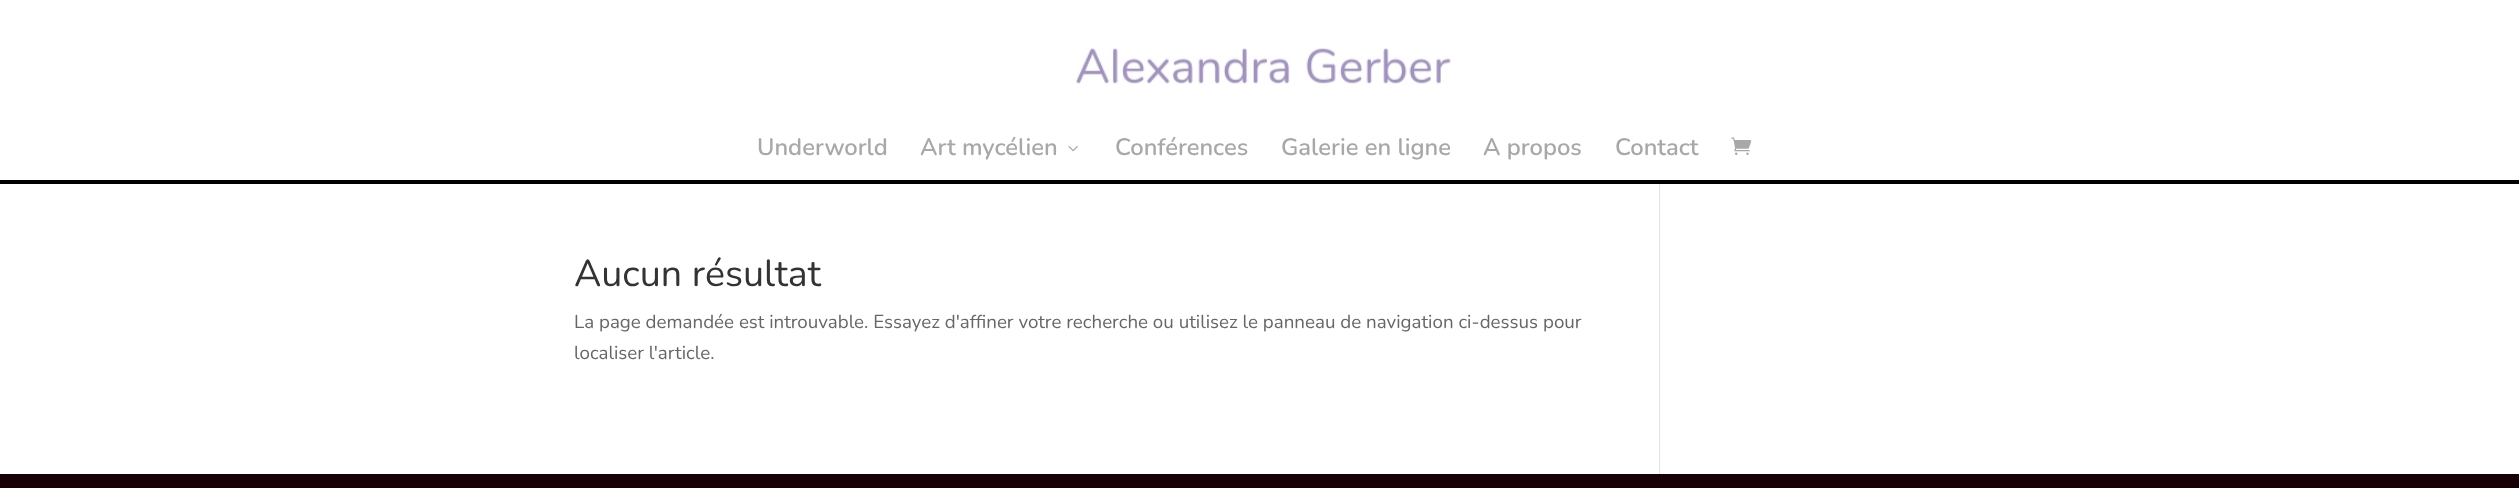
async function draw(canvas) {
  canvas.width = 2519
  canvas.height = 488
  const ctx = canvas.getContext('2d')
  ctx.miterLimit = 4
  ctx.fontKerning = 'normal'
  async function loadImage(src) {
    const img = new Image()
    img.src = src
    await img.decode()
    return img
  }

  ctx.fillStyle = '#000'
  ctx.fillRect(0, 0, 2519, 488)
  ctx.fillStyle = '#fff'
  ctx.fillRect(0, 0, 2519, 180)
  ctx.drawImage(await loadImage('image0.png'), 1076, 48, 375, 36)
  ctx.font = '600 23.75px Nunito'
  ctx.fillStyle = '#a8a8a8'
  ctx.fillText('Underworld', 757, 155)
  ctx.fillText('Art mycélien', 920, 155)
  ctx.drawImage(await loadImage('image1.png'), 1068, 146, 10, 6)
  ctx.fillText('Conférences', 1115, 155)
  ctx.fillText('Galerie en ligne', 1281, 155)
  ctx.fillText('A propos', 1483, 155)
  ctx.fillText('Contact', 1615, 155)
  ctx.drawImage(await loadImage('image2.png'), 1731, 137, 21, 18)
  ctx.fillStyle = '#fff'
  ctx.fillRect(0, 184, 2519, 290)
  ctx.font = '37.5px Nunito'
  ctx.fillStyle = '#333'
  ctx.fillText('Aucun résultat', 574, 286)
  ctx.font = '18.75px Nunito'
  ctx.fillStyle = '#666'
  ctx.fillText('La page demandée est introuvable. Essayez d\'affiner votre recherche ou utilisez le panneau de navigation ci-dessus pour', 574, 328)
  ctx.fillText('localiser l\'article.', 574, 359)
  ctx.fillStyle = '#e2e2e2'
  ctx.fillRect(1659, 184, 1, 290)
  ctx.fillStyle = '#160006'
  ctx.fillRect(0, 474, 2519, 14)
}

draw(document.querySelector('canvas'))
